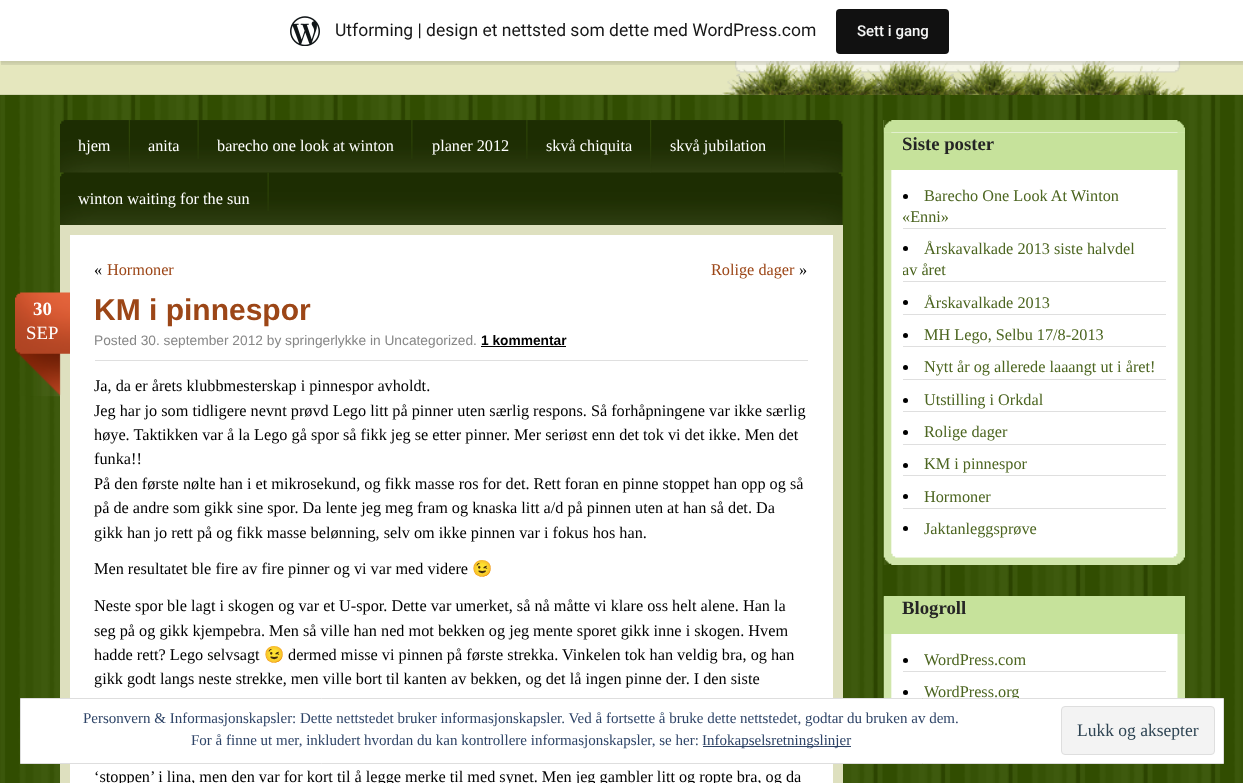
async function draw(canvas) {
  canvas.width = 1243
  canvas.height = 783
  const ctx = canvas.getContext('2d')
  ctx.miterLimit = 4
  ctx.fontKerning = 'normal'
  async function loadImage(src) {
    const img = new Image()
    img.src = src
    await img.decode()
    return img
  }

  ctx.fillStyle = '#fff'
  ctx.fillRect(0, 0, 1243, 783)
  ctx.drawImage(await loadImage('image0.png'), 0, 95, 1243, 688)
  ctx.drawImage(await loadImage('image2.png'), 0, 61, 1243, 34)
  ctx.drawImage(await loadImage('image3.png'), 722, 61, 463, 34)
  ctx.fillStyle = '#0000000d'
  ctx.filter = 'blur(1px)'
  ctx.beginPath()
  ctx.rect(0, 1, 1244, 62)
  ctx.fill()
  ctx.filter = 'none'
  ctx.fillStyle = '#00000014'
  ctx.beginPath()
  ctx.moveTo(1, 61)
  ctx.lineTo(1, 65)
  ctx.lineTo(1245, 65)
  ctx.lineTo(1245, 4)
  ctx.lineTo(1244, 4)
  ctx.lineTo(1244, 61)
  ctx.closePath()
  ctx.fill()
  ctx.fillStyle = '#fff'
  ctx.fillRect(0, 0, 1243, 61)
  ctx.drawImage(await loadImage('image1.png'), 290, 16, 30, 30)
  ctx.font = '17.5px Roboto'
  ctx.fillStyle = '#171717'
  ctx.fillText('Utforming | design et nettsted som dette med WordPress.com', 335, 36)
  ctx.fillStyle = '#111'
  ctx.beginPath()
  ctx.roundRect(836, 9, 113, 45, 4)
  ctx.fill()
  ctx.font = '500 15px Roboto'
  ctx.fillStyle = '#f6f7f7'
  ctx.fillText('Sett i gang', 857, 36)
  ctx.drawImage(await loadImage('image4.png'), 60, 120, 783, 105)
  ctx.drawImage(await loadImage('image5.png'), 128, 120, 2, 53)
  ctx.font = '16.25px Liberation Serif'
  ctx.fillStyle = '#fff'
  ctx.fillText('hjem', 78, 151)
  ctx.drawImage(await loadImage('image6.png'), 197, 120, 2, 39)
  ctx.fillText('anita', 148, 151)
  ctx.drawImage(await loadImage('image7.png'), 411, 120, 2, 39)
  ctx.fillText('barecho one look at winton', 217, 151)
  ctx.drawImage(await loadImage('image7.png'), 526, 120, 2, 39)
  ctx.fillText('planer 2012', 432, 151)
  ctx.drawImage(await loadImage('image8.png'), 650, 120, 2, 53)
  ctx.fillText('skvå chiquita', 546, 151)
  ctx.drawImage(await loadImage('image5.png'), 783, 120, 2, 53)
  ctx.fillText('skvå jubilation', 670, 151)
  ctx.drawImage(await loadImage('image9.png'), 267, 172, 2, 39)
  ctx.fillText('winton waiting for the sun', 78, 204)
  ctx.fillStyle = '#dee0bf'
  ctx.fillRect(60, 225, 783, 558)
  ctx.fillStyle = '#fff'
  ctx.fillRect(70, 235, 763, 548)
  ctx.fillStyle = '#000'
  ctx.fillText('«', 94, 275)
  ctx.fillStyle = '#9c4617'
  ctx.fillText('Hormoner', 107, 275)
  ctx.fillText('Rolige dager', 711, 275)
  ctx.fillStyle = '#000'
  ctx.fillText('»', 799, 275)
  ctx.drawImage(await loadImage('image10.png'), 15, 292, 55, 105)
  ctx.font = 'bold 18.75px Liberation Serif'
  ctx.fillStyle = '#fff'
  ctx.fillText('30', 33, 315)
  ctx.font = '18.75px Liberation Serif'
  ctx.fillText('SEP', 26, 339)
  ctx.font = 'bold 30px Liberation Sans'
  ctx.fillStyle = '#9c4617'
  ctx.fillText('KM i pinnespor', 94, 320)
  ctx.fillStyle = '#dfdfdf'
  ctx.fillRect(95, 360, 713, 1)
  ctx.font = '13.75px Liberation Sans'
  ctx.fillStyle = '#878787'
  ctx.fillText('Posted 30. september 2012 by springerlykke in Uncategorized.', 94, 345)
  ctx.font = 'bold 13.75px Liberation Sans'
  ctx.fillStyle = '#000'
  ctx.fillText('1 kommentar', 481, 345)
  ctx.fillRect(481, 346, 85, 1)
  ctx.font = '16.25px Liberation Serif'
  ctx.fillText('Ja, da er årets klubbmesterskap i pinnespor avholdt.', 94, 391)
  ctx.fillText('Jeg har jo som tidligere nevnt prøvd Lego litt på pinner uten særlig respons. Så forhåpningene var ikke særlig', 94, 416)
  ctx.fillText('høye. Taktikken var å la Lego gå spor så fikk jeg se etter pinner. Mer seriøst enn det tok vi det ikke. Men det', 94, 440)
  ctx.fillText('funka!!', 94, 464)
  ctx.fillText('På den første nølte han i et mikrosekund, og fikk masse ros for det. Rett foran en pinne stoppet han opp og så', 94, 489)
  ctx.fillText('på de andre som gikk sine spor. Da lente jeg meg fram og knaska litt a/d på pinnen uten at han så det. Da', 94, 513)
  ctx.fillText('gikk han jo rett på og fikk masse belønning, selv om ikke pinnen var i fokus hos han.', 94, 538)
  ctx.fillText('Men resultatet ble fire av fire pinner og vi var med videre', 94, 574)
  ctx.font = '16.25px Noto Color Emoji'
  ctx.fillText('😉', 472, 574)
  ctx.font = '16.25px Liberation Serif'
  ctx.fillText('Neste spor ble lagt i skogen og var et U-spor. Dette var umerket, så nå måtte vi klare oss helt alene. Han la', 94, 611)
  ctx.fillText('seg på og gikk kjempebra. Men så ville han ned mot bekken og jeg mente sporet gikk inne i skogen. Hvem', 94, 636)
  ctx.fillText('hadde rett? Lego selvsagt', 94, 660)
  ctx.font = '16.25px Noto Color Emoji'
  ctx.fillText('😉', 264, 660)
  ctx.font = '16.25px Liberation Serif'
  ctx.fillText('dermed misse vi pinnen på første strekka. Vinkelen tok han veldig bra, og han', 288, 660)
  ctx.fillText('gikk godt langs neste strekke, men ville bort til kanten av bekken, og det lå ingen pinne der. I den siste', 94, 684)
  ctx.fillText('‘stoppen’ i lina, men den var for kort til å legge merke til med synet. Men jeg gambler litt og ropte bra, og da', 94, 782)
  ctx.drawImage(await loadImage('image11.png'), 883, 120, 302, 445)
  ctx.drawImage(await loadImage('image12.png'), 883, 120, 302, 13)
  ctx.fillStyle = '#c6e29b'
  ctx.fillRect(884, 133, 301, 37)
  ctx.font = 'bold 18.75px Liberation Serif'
  ctx.fillStyle = '#252525'
  ctx.fillText('Siste poster', 902, 150)
  ctx.fillStyle = '#000'
  ctx.beginPath()
  ctx.arc(905.5, 196.5, 2.5, 0, 2 * Math.PI)
  ctx.fill()
  ctx.font = '16.25px Liberation Serif'
  ctx.fillStyle = '#4c6520'
  ctx.fillText('Barecho One Look At Winton', 924, 201)
  ctx.fillText('«Enni»', 902, 222)
  ctx.fillStyle = '#dfdfdf'
  ctx.fillRect(903, 228, 263, 1)
  ctx.fillStyle = '#000'
  ctx.beginPath()
  ctx.arc(905.5, 248.5, 2.5, 0, 2 * Math.PI)
  ctx.fill()
  ctx.fillStyle = '#4c6520'
  ctx.fillText('Årskavalkade 2013 siste halvdel', 924, 254)
  ctx.save()
  ctx.beginPath()
  ctx.rect(903, 176, 263, 364)
  ctx.clip()
  ctx.fillText('av året', 902, 275)
  ctx.restore()
  ctx.fillStyle = '#dfdfdf'
  ctx.fillRect(903, 281, 263, 1)
  ctx.fillStyle = '#000'
  ctx.beginPath()
  ctx.arc(905.5, 302.5, 2.5, 0, 2 * Math.PI)
  ctx.fill()
  ctx.fillStyle = '#4c6520'
  ctx.fillText('Årskavalkade 2013', 924, 308)
  ctx.fillStyle = '#dfdfdf'
  ctx.fillRect(903, 314, 263, 1)
  ctx.fillStyle = '#000'
  ctx.beginPath()
  ctx.arc(905.5, 335.5, 2.5, 0, 2 * Math.PI)
  ctx.fill()
  ctx.fillStyle = '#4c6520'
  ctx.fillText('MH Lego, Selbu 17/8-2013', 924, 340)
  ctx.fillStyle = '#dfdfdf'
  ctx.fillRect(903, 346, 263, 1)
  ctx.fillStyle = '#000'
  ctx.beginPath()
  ctx.arc(905.5, 367.5, 2.5, 0, 2 * Math.PI)
  ctx.fill()
  ctx.fillStyle = '#4c6520'
  ctx.fillText('Nytt år og allerede laaangt ut i året!', 924, 372)
  ctx.fillStyle = '#dfdfdf'
  ctx.fillRect(903, 379, 263, 1)
  ctx.fillStyle = '#000'
  ctx.beginPath()
  ctx.arc(905.5, 400.5, 2.5, 0, 2 * Math.PI)
  ctx.fill()
  ctx.fillStyle = '#4c6520'
  ctx.fillText('Utstilling i Orkdal', 924, 405)
  ctx.fillStyle = '#dfdfdf'
  ctx.fillRect(903, 411, 263, 1)
  ctx.fillStyle = '#000'
  ctx.beginPath()
  ctx.arc(905.5, 432.5, 2.5, 0, 2 * Math.PI)
  ctx.fill()
  ctx.fillStyle = '#4c6520'
  ctx.fillText('Rolige dager', 924, 437)
  ctx.fillStyle = '#dfdfdf'
  ctx.fillRect(903, 444, 263, 1)
  ctx.fillStyle = '#000'
  ctx.beginPath()
  ctx.arc(905.5, 465.5, 2.5, 0, 2 * Math.PI)
  ctx.fill()
  ctx.fillStyle = '#4c6520'
  ctx.fillText('KM i pinnespor', 924, 469)
  ctx.fillStyle = '#dfdfdf'
  ctx.fillRect(903, 475, 263, 1)
  ctx.fillStyle = '#000'
  ctx.beginPath()
  ctx.arc(905.5, 496.5, 2.5, 0, 2 * Math.PI)
  ctx.fill()
  ctx.fillStyle = '#4c6520'
  ctx.fillText('Hormoner', 924, 502)
  ctx.fillStyle = '#dfdfdf'
  ctx.fillRect(903, 508, 263, 1)
  ctx.fillStyle = '#000'
  ctx.beginPath()
  ctx.arc(905.5, 528.5, 2.5, 0, 2 * Math.PI)
  ctx.fill()
  ctx.fillStyle = '#4c6520'
  ctx.fillText('Jaktanleggsprøve', 924, 534)
  ctx.drawImage(await loadImage('image13.png'), 883, 596, 302, 102)
  ctx.fillStyle = '#c6e29b'
  ctx.fillRect(884, 596, 301, 38)
  ctx.font = 'bold 18.75px Liberation Serif'
  ctx.fillStyle = '#252525'
  ctx.fillText('Blogroll', 902, 614)
  ctx.fillStyle = '#000'
  ctx.beginPath()
  ctx.arc(905.5, 660.5, 2.5, 0, 2 * Math.PI)
  ctx.fill()
  ctx.font = '16.25px Liberation Serif'
  ctx.fillStyle = '#4c6520'
  ctx.fillText('WordPress.com', 924, 665)
  ctx.fillStyle = '#dfdfdf'
  ctx.fillRect(903, 671, 263, 1)
  ctx.fillStyle = '#000'
  ctx.beginPath()
  ctx.arc(905.5, 692.5, 2.5, 0, 2 * Math.PI)
  ctx.fill()
  ctx.fillStyle = '#4c6520'
  ctx.fillText('WordPress.org', 924, 697)
  ctx.fillStyle = '#fff'
  ctx.beginPath()
  ctx.rect(20.5, 698.5, 1203, 65)
  ctx.fill()
  ctx.strokeStyle = '#dedede'
  ctx.stroke()
  ctx.font = '15px Liberation Serif'
  ctx.fillStyle = '#2e4467'
  ctx.fillText('Personvern & Informasjonskapsler: Dette nettstedet bruker informasjonskapsler. Ved å fortsette å bruke dette nettstedet, godtar du bruken av dem.', 83, 723)
  ctx.fillStyle = '#f3f3f3'
  ctx.beginPath()
  ctx.roundRect(1061.5, 706.5, 153, 48, 3.5)
  ctx.fill()
  ctx.stroke()
  ctx.font = '17.5px Liberation Serif'
  ctx.fillStyle = '#2e4453'
  ctx.fillText('Lukk og aksepter', 1077, 736)
  ctx.font = '15px Liberation Serif'
  ctx.fillStyle = '#2e4467'
  ctx.fillText('For å finne ut mer, inkludert hvordan du kan kontrollere informasjonskapsler, se her:', 191, 745)
  ctx.fillRect(703, 746, 148, 1)
  ctx.fillText('Infokapselsretningslinjer', 702, 745)
}

draw(document.querySelector('canvas'))
